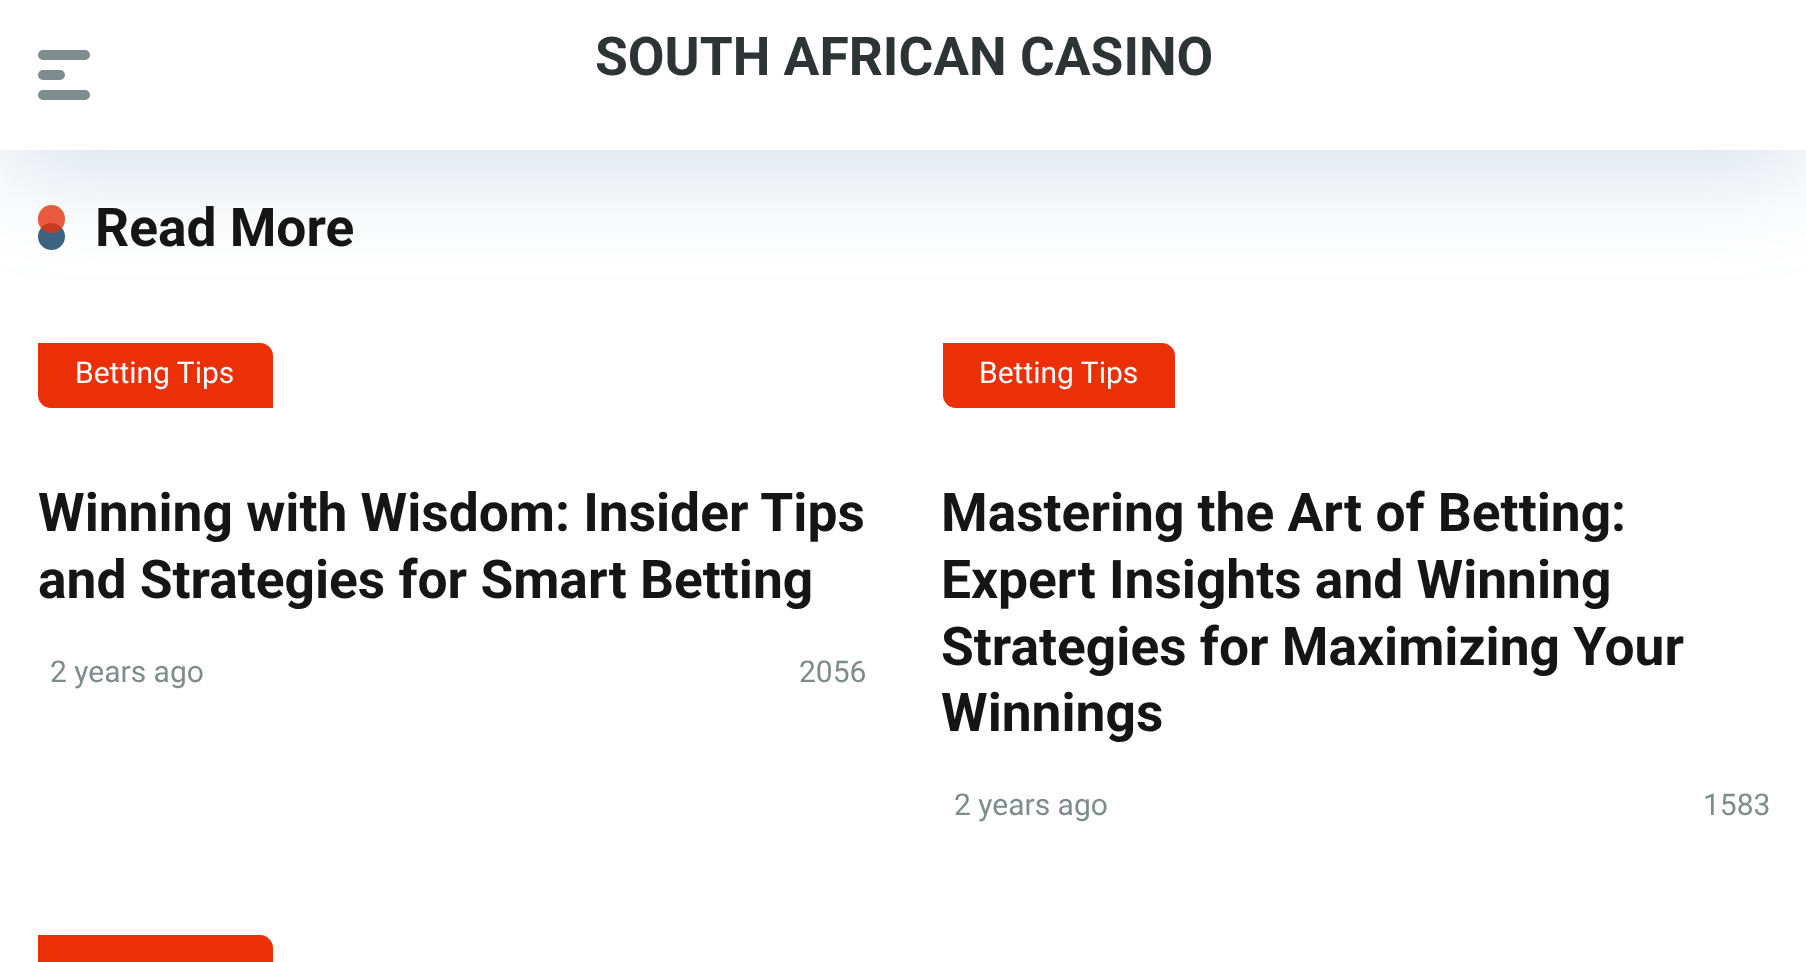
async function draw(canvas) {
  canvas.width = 1806
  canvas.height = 962
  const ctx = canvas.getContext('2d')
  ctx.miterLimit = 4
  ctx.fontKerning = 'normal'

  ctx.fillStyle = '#fff'
  ctx.fillRect(0, 0, 1806, 962)
  ctx.fillStyle = '#3c6382'
  ctx.beginPath()
  ctx.arc(51.5, 236.5, 13.5, 0, 2 * Math.PI)
  ctx.fill()
  ctx.fillStyle = '#eb2f06cc'
  ctx.beginPath()
  ctx.roundRect(38, 205, 27, 28, 13.5)
  ctx.fill()
  ctx.fillStyle = '#6d8dad40'
  ctx.filter = 'blur(50px)'
  ctx.beginPath()
  ctx.rect(0, 25, 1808, 150)
  ctx.fill()
  ctx.filter = 'none'
  ctx.fillStyle = '#fff'
  ctx.fillRect(0, 0, 1806, 150)
  ctx.fillStyle = '#7f8c8d'
  ctx.beginPath()
  ctx.roundRect(38, 50, 52, 10, 5)
  ctx.fill()
  ctx.beginPath()
  ctx.roundRect(38, 70, 27, 10, 5)
  ctx.fill()
  ctx.beginPath()
  ctx.roundRect(38, 90, 52, 10, 5)
  ctx.fill()
  ctx.font = 'bold 53.3px Roboto'
  ctx.fillStyle = '#2d3436'
  ctx.fillText('SOUTH AFRICAN CASINO', 595, 75)
  ctx.fillStyle = '#151515'
  ctx.fillText('Read More', 95, 246)
  ctx.fillStyle = '#eb2f06'
  ctx.beginPath()
  ctx.roundRect(38, 343, 235, 65, [0, 13, 0, 13])
  ctx.fill()
  ctx.font = '30px Roboto'
  ctx.fillStyle = '#fff'
  ctx.fillText('Betting Tips', 75, 383)
  ctx.font = 'bold 53.3px Roboto'
  ctx.fillStyle = '#151515'
  ctx.fillText('Winning with Wisdom: Insider Tips', 38, 531)
  ctx.fillText('and Strategies for Smart Betting', 38, 598)
  ctx.font = '30px Roboto'
  ctx.fillStyle = '#7f8c8d'
  ctx.fillText('2 years ago', 50, 682)
  ctx.fillText('2056', 799, 682)
  ctx.fillStyle = '#eb2f06'
  ctx.beginPath()
  ctx.roundRect(943, 343, 232, 65, [0, 13, 0, 13])
  ctx.fill()
  ctx.fillStyle = '#fff'
  ctx.fillText('Betting Tips', 979, 383)
  ctx.font = 'bold 53.3px Roboto'
  ctx.fillStyle = '#151515'
  ctx.fillText('Mastering the Art of Betting:', 941, 531)
  ctx.fillText('Expert Insights and Winning', 941, 598)
  ctx.fillText('Strategies for Maximizing Your', 941, 665)
  ctx.fillText('Winnings', 941, 731)
  ctx.font = '30px Roboto'
  ctx.fillStyle = '#7f8c8d'
  ctx.fillText('2 years ago', 954, 815)
  ctx.fillText('1583', 1703, 815)
  ctx.fillStyle = '#eb2f06'
  ctx.beginPath()
  ctx.moveTo(38, 935)
  ctx.lineTo(260, 935)
  ctx.bezierCurveTo(267, 935, 273, 941, 273, 948)
  ctx.lineTo(273, 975)
  ctx.lineTo(51, 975)
  ctx.bezierCurveTo(44, 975, 38, 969, 38, 962)
  ctx.closePath()
  ctx.fill()
}

draw(document.querySelector('canvas'))
